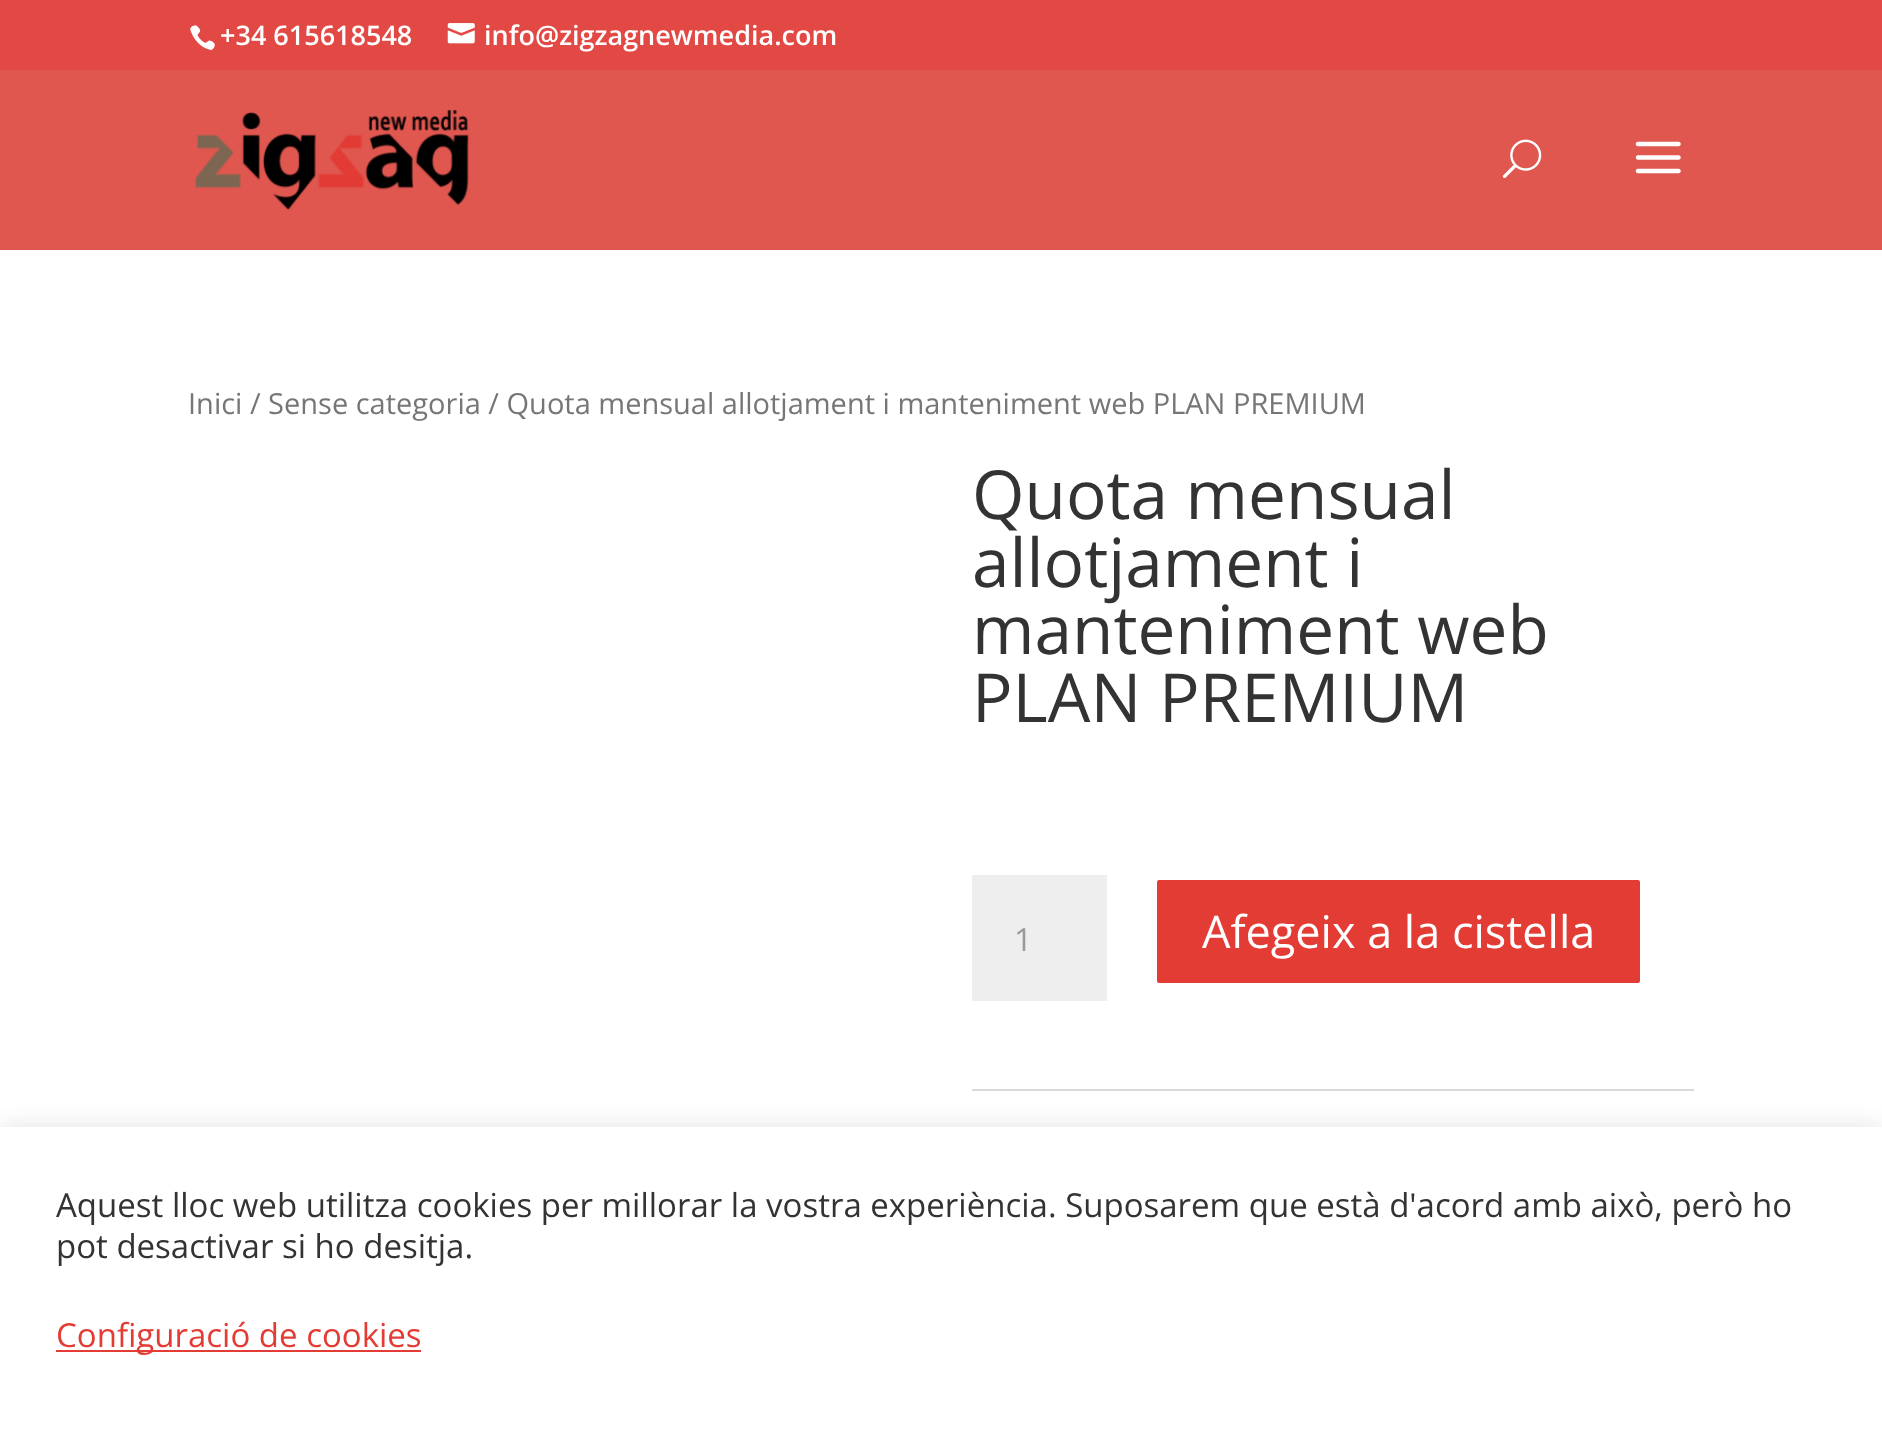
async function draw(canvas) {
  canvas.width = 1882
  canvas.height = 1434
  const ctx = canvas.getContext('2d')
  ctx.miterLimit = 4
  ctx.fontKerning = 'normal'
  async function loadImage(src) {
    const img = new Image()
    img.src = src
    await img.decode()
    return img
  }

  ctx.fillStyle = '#fff'
  ctx.fillRect(0, 0, 1882, 1434)
  ctx.fillStyle = '#e24944'
  ctx.fillRect(0, 0, 1882, 70)
  ctx.drawImage(await loadImage('image0.png'), 190, 25, 25, 26)
  ctx.font = '600 27px Open Sans'
  ctx.fillStyle = '#fff'
  ctx.fillText('+34 615618548', 220, 45)
  ctx.drawImage(await loadImage('image1.png'), 447, 23, 28, 21)
  ctx.fillText('info@zigzagnewmedia.com', 484, 45)
  ctx.fillStyle = '#e05750'
  ctx.fillRect(0, 70, 1882, 180)
  ctx.drawImage(await loadImage('image2.png'), 195, 110, 274, 100)
  ctx.drawImage(await loadImage('image3.png'), 1502, 139, 40, 39)
  ctx.drawImage(await loadImage('image4.png'), 1635, 141, 46, 33)
  ctx.font = '29px Open Sans'
  ctx.fillStyle = '#767676'
  ctx.fillText('Inici / Sense categoria / Quota mensual allotjament i manteniment web PLAN PREMIUM', 188, 414)
  ctx.font = '67.5px Open Sans'
  ctx.fillStyle = '#333'
  ctx.fillText('Quota mensual', 972, 519)
  ctx.fillText('allotjament i', 972, 587)
  ctx.fillText('manteniment web', 972, 654)
  ctx.fillText('PLAN PREMIUM', 972, 722)
  ctx.fillStyle = '#eee'
  ctx.fillRect(972, 875, 135, 126)
  ctx.font = '32px Open Sans'
  ctx.fillStyle = '#999'
  ctx.fillText('1', 1014, 951)
  ctx.fillStyle = '#e33c35'
  ctx.beginPath()
  ctx.roundRect(1154.5, 877.5, 488, 108, 4.5)
  ctx.fill()
  ctx.strokeStyle = '#fff'
  ctx.lineWidth = 5
  ctx.stroke()
  ctx.font = '45px Open Sans'
  ctx.fillStyle = '#fff'
  ctx.fillText('Afegeix a la cistella', 1202, 948)
  ctx.fillStyle = '#dadada'
  ctx.fillRect(972, 1089, 722, 2)
  ctx.fillStyle = '#acabab4d'
  ctx.filter = 'blur(11px)'
  ctx.beginPath()
  ctx.rect(0, 1125, 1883, 308)
  ctx.fill()
  ctx.filter = 'none'
  ctx.fillStyle = '#fff'
  ctx.fillRect(0, 1127, 1882, 307)
  ctx.font = '33px Open Sans'
  ctx.fillStyle = '#333'
  ctx.fillText('Aquest lloc web utilitza cookies per millorar la vostra experiència. Suposarem que està d\'acord amb això, però ho', 56, 1217)
  ctx.fillText('pot desactivar si ho desitja.', 56, 1258)
  ctx.fillStyle = '#e33c35'
  ctx.fillRect(56, 1350, 365, 2)
  ctx.fillText('Configuració de cookies', 56, 1347)
}

draw(document.querySelector('canvas'))
